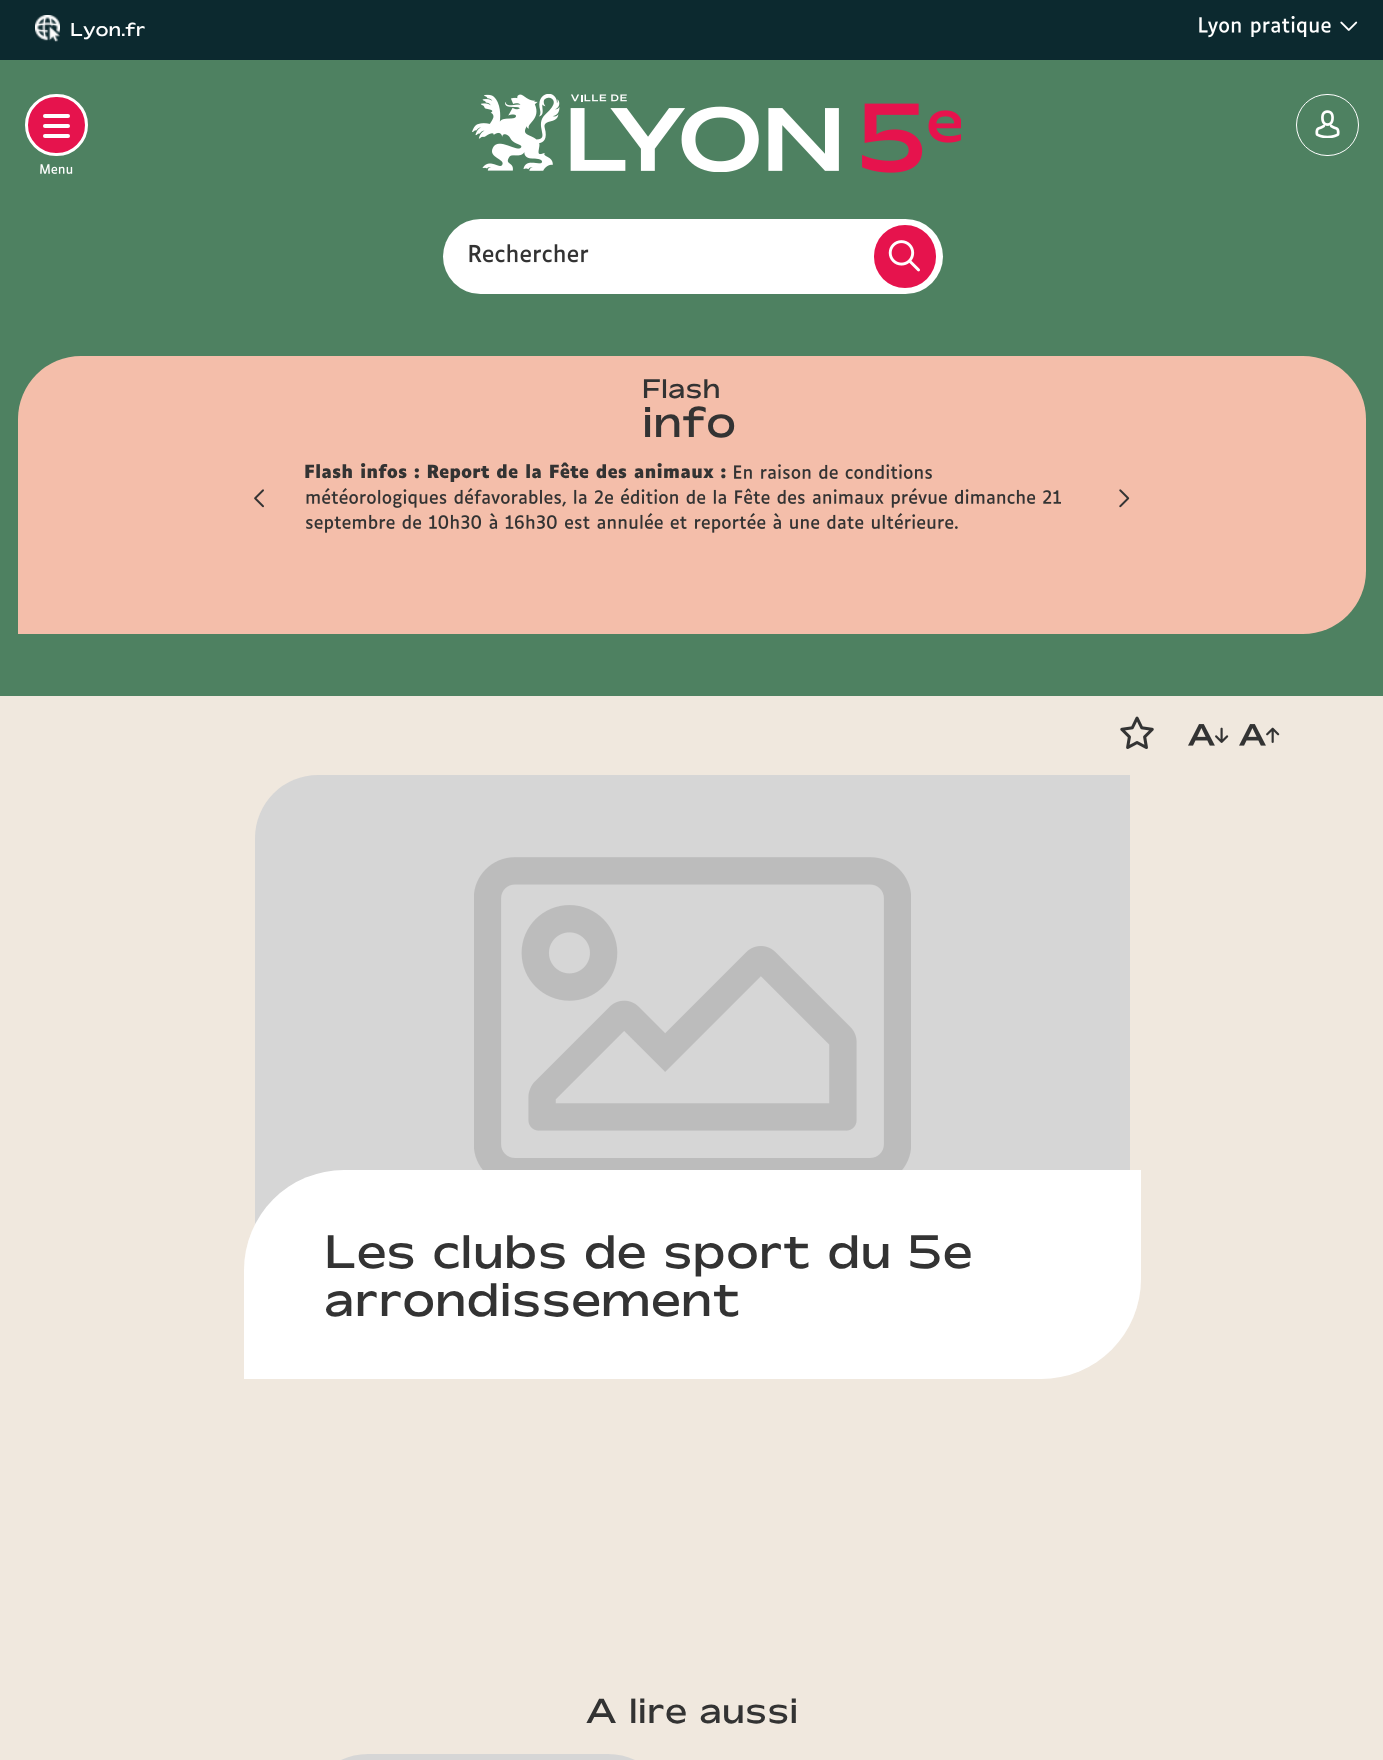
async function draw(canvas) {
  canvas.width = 1383
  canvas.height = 1760
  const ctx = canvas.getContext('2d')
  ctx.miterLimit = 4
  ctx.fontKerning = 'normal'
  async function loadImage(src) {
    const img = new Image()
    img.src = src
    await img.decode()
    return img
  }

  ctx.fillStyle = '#f0e8de'
  ctx.fillRect(0, 0, 1383, 1760)
  ctx.fillStyle = '#0c292f'
  ctx.fillRect(0, 0, 1383, 60)
  ctx.drawImage(await loadImage('image0.png'), 35, 15, 25, 27)
  ctx.font = '17.5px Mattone'
  ctx.fillStyle = '#fff'
  ctx.fillText('Lyon.fr', 70, 36)
  ctx.drawImage(await loadImage('image1.png'), 1199, 16, 132, 22)
  ctx.drawImage(await loadImage('image2.png'), 1340, 21, 18, 10)
  ctx.fillStyle = '#4e8161'
  ctx.fillRect(0, 60, 1383, 636)
  ctx.fillStyle = '#e6134d'
  ctx.beginPath()
  ctx.roundRect(26.5, 95.5, 60, 59, 29.5)
  ctx.fill()
  ctx.strokeStyle = '#fff'
  ctx.lineWidth = 3
  ctx.stroke()
  ctx.fillStyle = '#fff'
  ctx.beginPath()
  ctx.roundRect(43, 114, 27, 4, 2)
  ctx.fill()
  ctx.beginPath()
  ctx.roundRect(43, 124, 27, 4, 2)
  ctx.fill()
  ctx.beginPath()
  ctx.roundRect(43, 134, 27, 4, 2)
  ctx.fill()
  ctx.drawImage(await loadImage('image3.png'), 40, 164, 33, 10)
  ctx.beginPath()
  ctx.roundRect(1296.5, 94.5, 62, 61, 30.5)
  ctx.lineWidth = 1
  ctx.stroke()
  ctx.drawImage(await loadImage('image4.png'), 1315, 110, 25, 28)
  ctx.beginPath()
  ctx.roundRect(443, 219, 500, 75, 37.5)
  ctx.fill()
  ctx.drawImage(await loadImage('image5.png'), 469, 244, 120, 19)
  ctx.fillStyle = '#e6134d'
  ctx.beginPath()
  ctx.roundRect(874, 225, 62, 63, 31)
  ctx.fill()
  ctx.drawImage(await loadImage('image6.png'), 888, 240, 32, 32)
  ctx.drawImage(await loadImage('image7.png'), 472, 94, 489, 79)
  ctx.fillStyle = '#f4beaa'
  ctx.beginPath()
  ctx.roundRect(18, 356, 1348, 278, [63, 63, 63, 0])
  ctx.fill()
  ctx.font = '25px Mattone'
  ctx.fillStyle = '#333'
  ctx.fillText('Flash', 642, 398)
  ctx.font = '40px Mattone'
  ctx.fillText('info', 642, 437)
  ctx.font = 'bold 17.5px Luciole'
  ctx.fillText('Flash infos : Report de la Fête des animaux :', 304, 478)
  ctx.drawImage(await loadImage('image8.png'), 734, 464, 198, 15)
  ctx.drawImage(await loadImage('image9.png'), 306, 488, 755, 20)
  ctx.drawImage(await loadImage('image10.png'), 306, 513, 652, 20)
  ctx.drawImage(await loadImage('image11.png'), 254, 489, 10, 19)
  ctx.drawImage(await loadImage('image12.png'), 1119, 489, 11, 19)
  ctx.drawImage(await loadImage('image13.png'), 1120, 716, 34, 33)
  ctx.drawImage(await loadImage('image14.png'), 1188, 724, 41, 22)
  ctx.drawImage(await loadImage('image15.png'), 1239, 724, 41, 22)
  ctx.fillStyle = '#d6d6d6'
  ctx.beginPath()
  ctx.roundRect(255, 775, 875, 493, [63, 0, 0, 0])
  ctx.fill()
  ctx.drawImage(await loadImage('image16.png'), 474, 857, 437, 313)
  ctx.fillStyle = '#fff'
  ctx.beginPath()
  ctx.roundRect(244, 1170, 897, 209, [100, 0, 100, 0])
  ctx.fill()
  ctx.font = '43.75px Mattone'
  ctx.fillStyle = '#333'
  ctx.fillText('Les clubs de sport du 5e', 324, 1268)
  ctx.fillText('arrondissement', 324, 1316)
  ctx.font = '32.5px Mattone'
  ctx.fillText('A lire aussi', 586, 1723)
  ctx.fillStyle = '#d6d6d6'
  ctx.beginPath()
  ctx.moveTo(368, 1754)
  ctx.lineTo(608, 1754)
  ctx.bezierCurveTo(643, 1754, 671, 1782, 671, 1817)
  ctx.lineTo(671, 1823)
  ctx.lineTo(305, 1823)
  ctx.lineTo(305, 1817)
  ctx.bezierCurveTo(305, 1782, 333, 1754, 368, 1754)
  ctx.closePath()
  ctx.fill()
}

draw(document.querySelector('canvas'))
